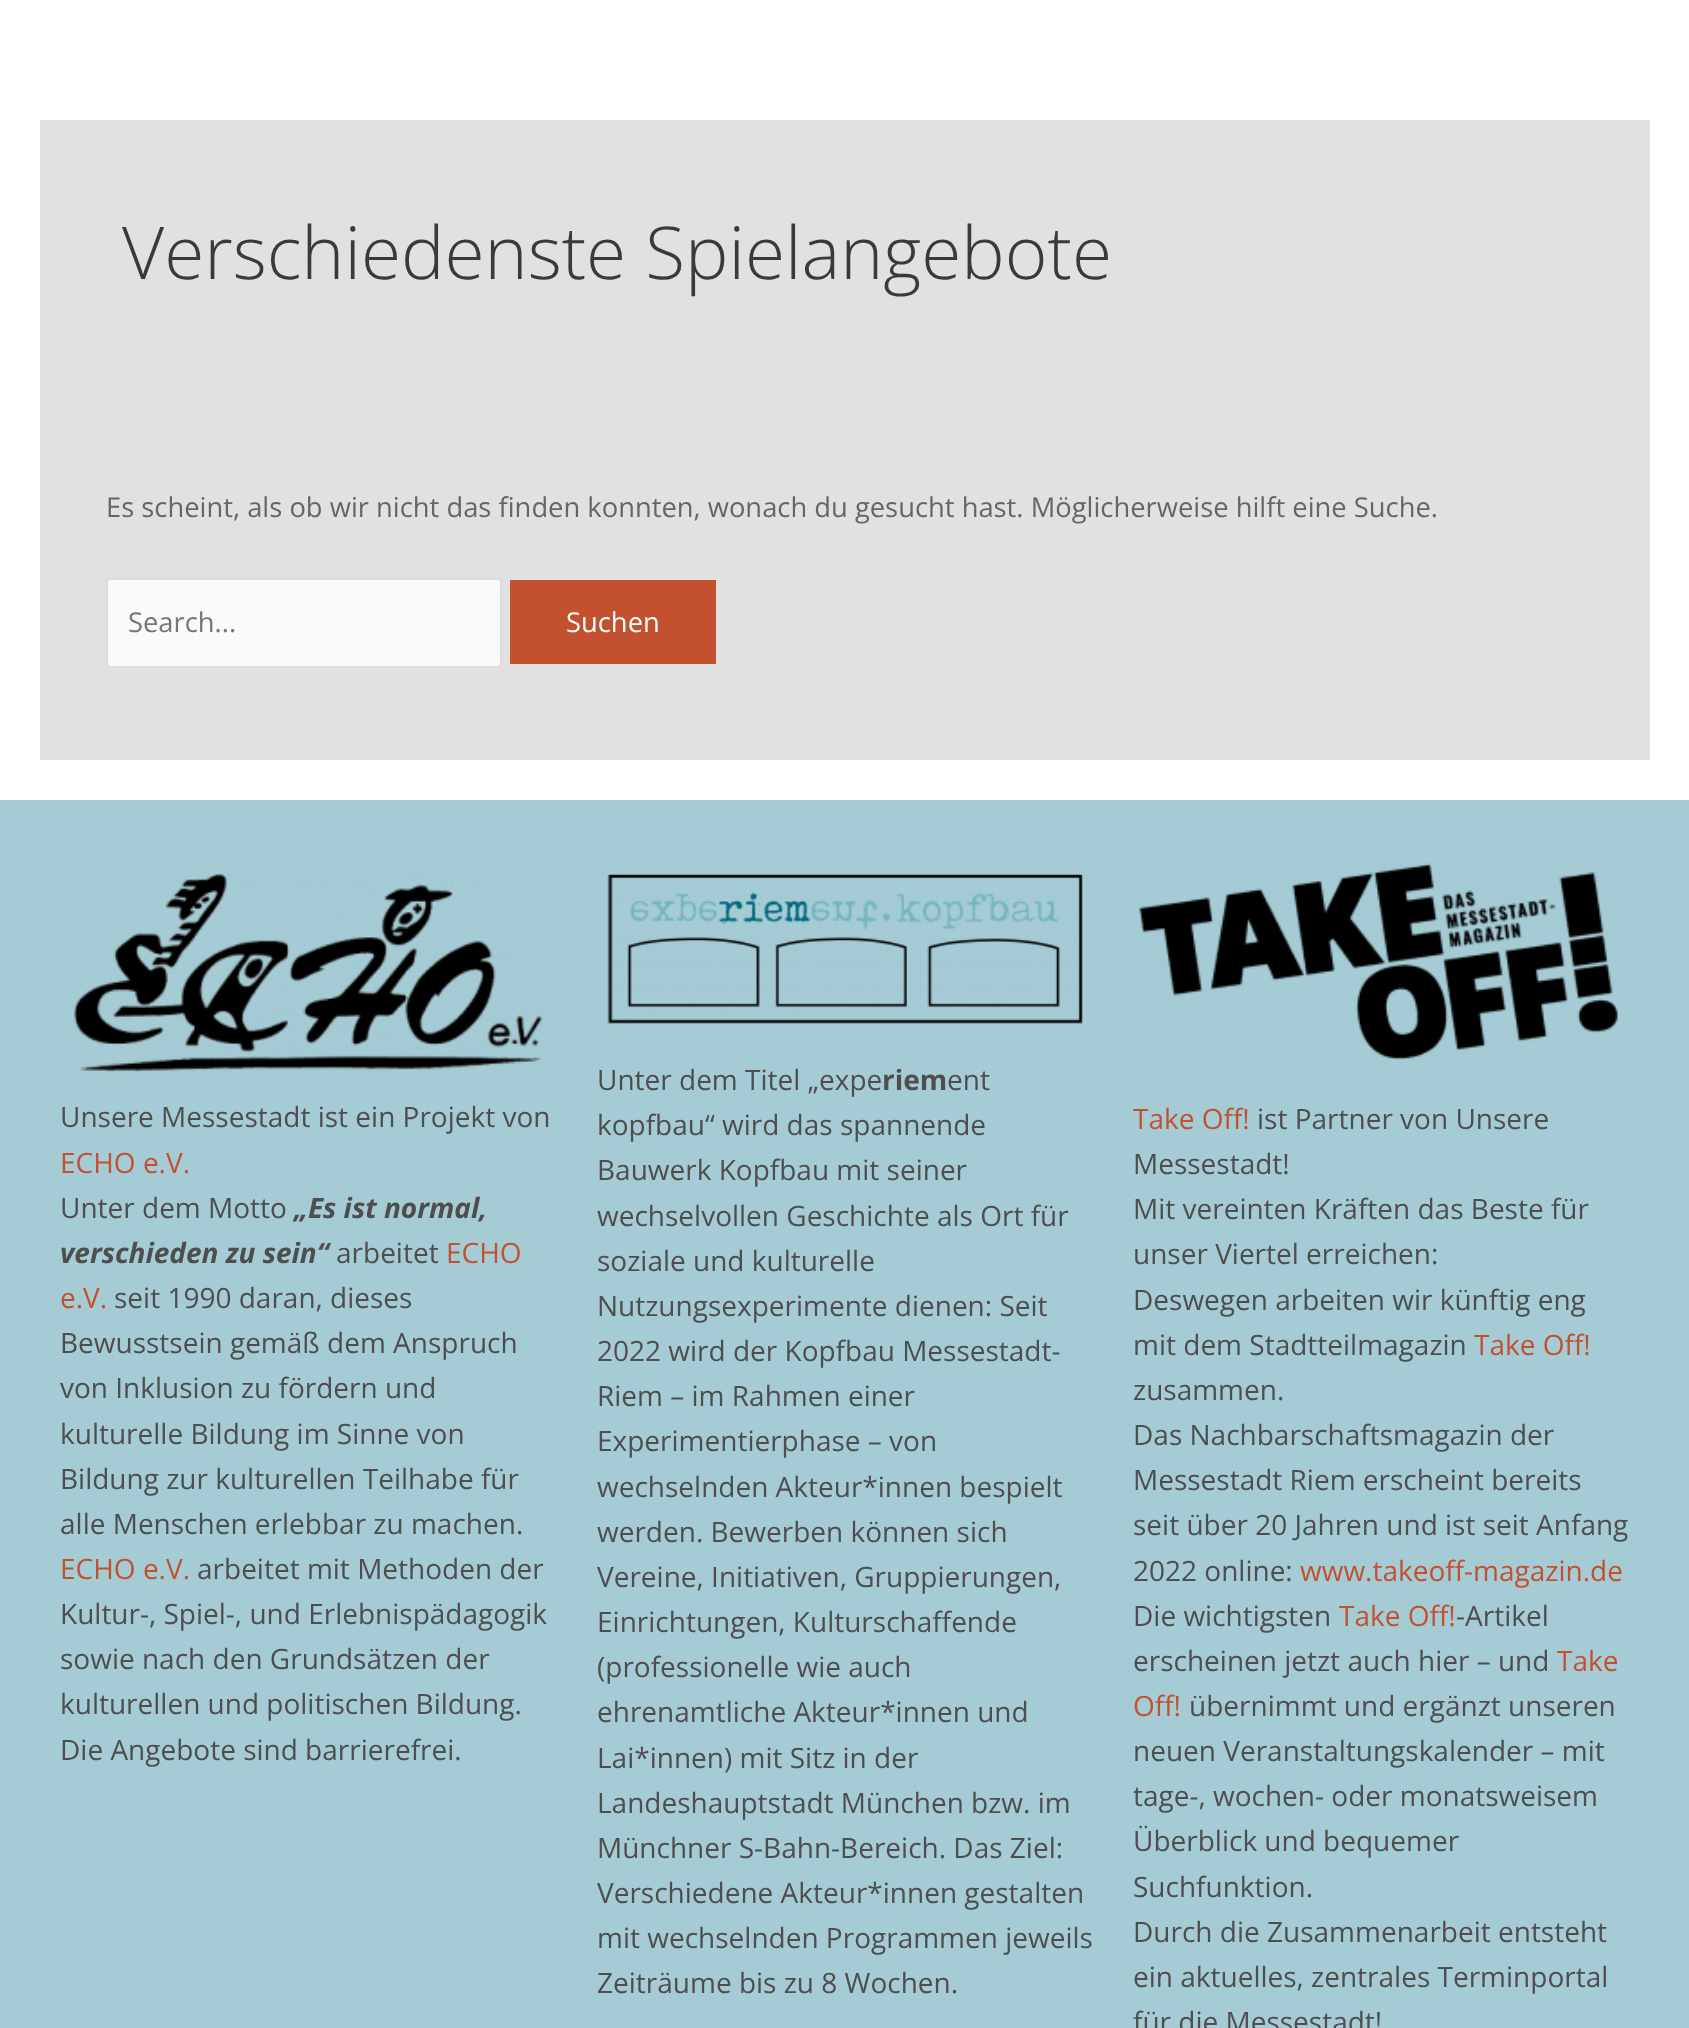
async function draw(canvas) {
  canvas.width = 1689
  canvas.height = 2028
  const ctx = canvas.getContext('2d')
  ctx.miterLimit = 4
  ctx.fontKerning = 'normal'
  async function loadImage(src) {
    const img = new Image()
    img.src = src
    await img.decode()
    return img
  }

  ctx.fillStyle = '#fff'
  ctx.fillRect(0, 0, 1689, 2028)
  ctx.fillStyle = '#e1e1e1'
  ctx.fillRect(40, 120, 1610, 640)
  ctx.font = '300 73px Open Sans'
  ctx.fillStyle = '#3a3a3a'
  ctx.fillText('Verschiedenste Spielangebote', 122, 279)
  ctx.font = '27.35px Open Sans'
  ctx.fillStyle = '#666'
  ctx.fillText('Es scheint, als ob wir nicht das finden konnten, wonach du gesucht hast. Möglicherweise hilft eine Suche.', 106, 517)
  ctx.fillStyle = '#fafafa'
  ctx.beginPath()
  ctx.roundRect(107, 579, 394, 88, 3)
  ctx.fill()
  ctx.strokeStyle = '#ddd'
  ctx.lineWidth = 2
  ctx.stroke()
  ctx.fillStyle = '#757575'
  ctx.fillText('Search...', 128, 632)
  ctx.fillStyle = '#c3512f'
  ctx.fillRect(510, 580, 206, 84)
  ctx.fillStyle = '#fff'
  ctx.fillText('Suchen', 566, 632)
  ctx.fillStyle = '#a5ccd5'
  ctx.fillRect(0, 800, 1689, 1228)
  ctx.drawImage(await loadImage('image0.png'), 74, 874, 469, 199)
  ctx.font = '28px Open Sans'
  ctx.fillStyle = '#4e4e4e'
  ctx.fillText('Unsere Messestadt ist ein Projekt von', 60, 1127)
  ctx.fillStyle = '#c3512f'
  ctx.fillText('ECHO e.V.', 60, 1173)
  ctx.fillStyle = '#4e4e4e'
  ctx.fillText('Unter dem Motto', 60, 1218)
  ctx.font = 'italic bold 28px Open Sans'
  ctx.fillText('„Es ist normal,', 294, 1218)
  ctx.fillText('verschieden zu sein“', 60, 1263)
  ctx.font = '28px Open Sans'
  ctx.fillText('arbeitet', 336, 1263)
  ctx.fillStyle = '#c3512f'
  ctx.fillText('ECHO', 446, 1263)
  ctx.fillText('e.V.', 60, 1308)
  ctx.fillStyle = '#4e4e4e'
  ctx.fillText('seit 1990 daran, dieses', 114, 1308)
  ctx.fillText('Bewusstsein gemäß dem Anspruch', 60, 1353)
  ctx.fillText('von Inklusion zu fördern und', 60, 1398)
  ctx.fillText('kulturelle Bildung im Sinne von', 60, 1444)
  ctx.fillText('Bildung zur kulturellen Teilhabe für', 60, 1489)
  ctx.fillText('alle Menschen erlebbar zu machen.', 60, 1534)
  ctx.fillStyle = '#c3512f'
  ctx.fillText('ECHO e.V.', 60, 1579)
  ctx.fillStyle = '#4e4e4e'
  ctx.fillText('arbeitet mit Methoden der', 197, 1579)
  ctx.fillText('Kultur-, Spiel-, und Erlebnispädagogik', 60, 1624)
  ctx.fillText('sowie nach den Grundsätzen der', 60, 1669)
  ctx.fillText('kulturellen und politischen Bildung.', 60, 1714)
  ctx.fillText('Die Angebote sind barrierefrei.', 60, 1760)
  ctx.drawImage(await loadImage('image1.png'), 607, 874, 476, 150)
  ctx.fillText('Unter dem Titel „expe', 597, 1090)
  ctx.font = 'bold 28px Open Sans'
  ctx.fillText('riem', 882, 1090)
  ctx.font = '28px Open Sans'
  ctx.fillText('ent', 947, 1090)
  ctx.fillText('kopfbau“ wird das spannende', 597, 1135)
  ctx.fillText('Bauwerk Kopfbau mit seiner', 597, 1180)
  ctx.fillText('wechselvollen Geschichte als Ort für', 597, 1226)
  ctx.fillText('soziale und kulturelle', 597, 1271)
  ctx.fillText('Nutzungsexperimente dienen: Seit', 597, 1316)
  ctx.fillText('2022 wird der Kopfbau Messestadt-', 597, 1361)
  ctx.fillText('Riem – im Rahmen einer', 597, 1406)
  ctx.fillText('Experimentierphase – von', 597, 1451)
  ctx.fillText('wechselnden Akteur*innen bespielt', 597, 1497)
  ctx.fillText('werden. Bewerben können sich', 597, 1542)
  ctx.fillText('Vereine, Initiativen, Gruppierungen,', 597, 1587)
  ctx.fillText('Einrichtungen, Kulturschaffende', 597, 1632)
  ctx.fillText('(professionelle wie auch', 597, 1677)
  ctx.fillText('ehrenamtliche Akteur*innen und', 597, 1722)
  ctx.fillText('Lai*innen) mit Sitz in der', 597, 1768)
  ctx.fillText('Landeshauptstadt München bzw. im', 597, 1813)
  ctx.fillText('Münchner S-Bahn-Bereich. Das Ziel:', 597, 1858)
  ctx.fillText('Verschiedene Akteur*innen gestalten', 597, 1903)
  ctx.fillText('mit wechselnden Programmen jeweils', 597, 1948)
  ctx.fillText('Zeiträume bis zu 8 Wochen.', 597, 1993)
  ctx.drawImage(await loadImage('image2.png'), 1139, 863, 479, 197)
  ctx.fillStyle = '#c3512f'
  ctx.fillText('Take Off!', 1133, 1129)
  ctx.fillStyle = '#4e4e4e'
  ctx.fillText('ist Partner von Unsere', 1257, 1129)
  ctx.fillText('Messestadt!', 1133, 1174)
  ctx.fillText('Mit vereinten Kräften das Beste für', 1133, 1219)
  ctx.fillText('unser Viertel erreichen:', 1133, 1264)
  ctx.fillText('Deswegen arbeiten wir künftig eng', 1133, 1310)
  ctx.fillText('mit dem Stadtteilmagazin', 1133, 1355)
  ctx.fillStyle = '#c3512f'
  ctx.fillText('Take Off!', 1474, 1355)
  ctx.fillStyle = '#4e4e4e'
  ctx.fillText('zusammen.', 1133, 1400)
  ctx.fillText('Das Nachbarschaftsmagazin der', 1133, 1445)
  ctx.fillText('Messestadt Riem erscheint bereits', 1133, 1490)
  ctx.fillText('seit über 20 Jahren und ist seit Anfang', 1133, 1535)
  ctx.fillText('2022 online:', 1133, 1581)
  ctx.fillStyle = '#c3512f'
  ctx.fillText('www.takeoff-magazin.de', 1300, 1581)
  ctx.fillStyle = '#4e4e4e'
  ctx.fillText('Die wichtigsten', 1133, 1626)
  ctx.fillStyle = '#c3512f'
  ctx.fillText('Take Off!', 1339, 1626)
  ctx.fillStyle = '#4e4e4e'
  ctx.fillText('-Artikel', 1456, 1626)
  ctx.fillText('erscheinen jetzt auch hier – und', 1133, 1671)
  ctx.fillStyle = '#c3512f'
  ctx.fillText('Take', 1557, 1671)
  ctx.fillText('Off!', 1133, 1716)
  ctx.fillStyle = '#4e4e4e'
  ctx.fillText('übernimmt und ergänzt unseren', 1189, 1716)
  ctx.fillText('neuen Veranstaltungskalender – mit', 1133, 1761)
  ctx.fillText('tage-, wochen- oder monatsweisem', 1133, 1806)
  ctx.fillText('Überblick und bequemer', 1133, 1851)
  ctx.fillText('Suchfunktion.', 1133, 1897)
  ctx.fillText('Durch die Zusammenarbeit entsteht', 1133, 1942)
  ctx.fillText('ein aktuelles, zentrales Terminportal', 1133, 1987)
  ctx.fillText('für die Messestadt!', 1133, 2032)
}

draw(document.querySelector('canvas'))
